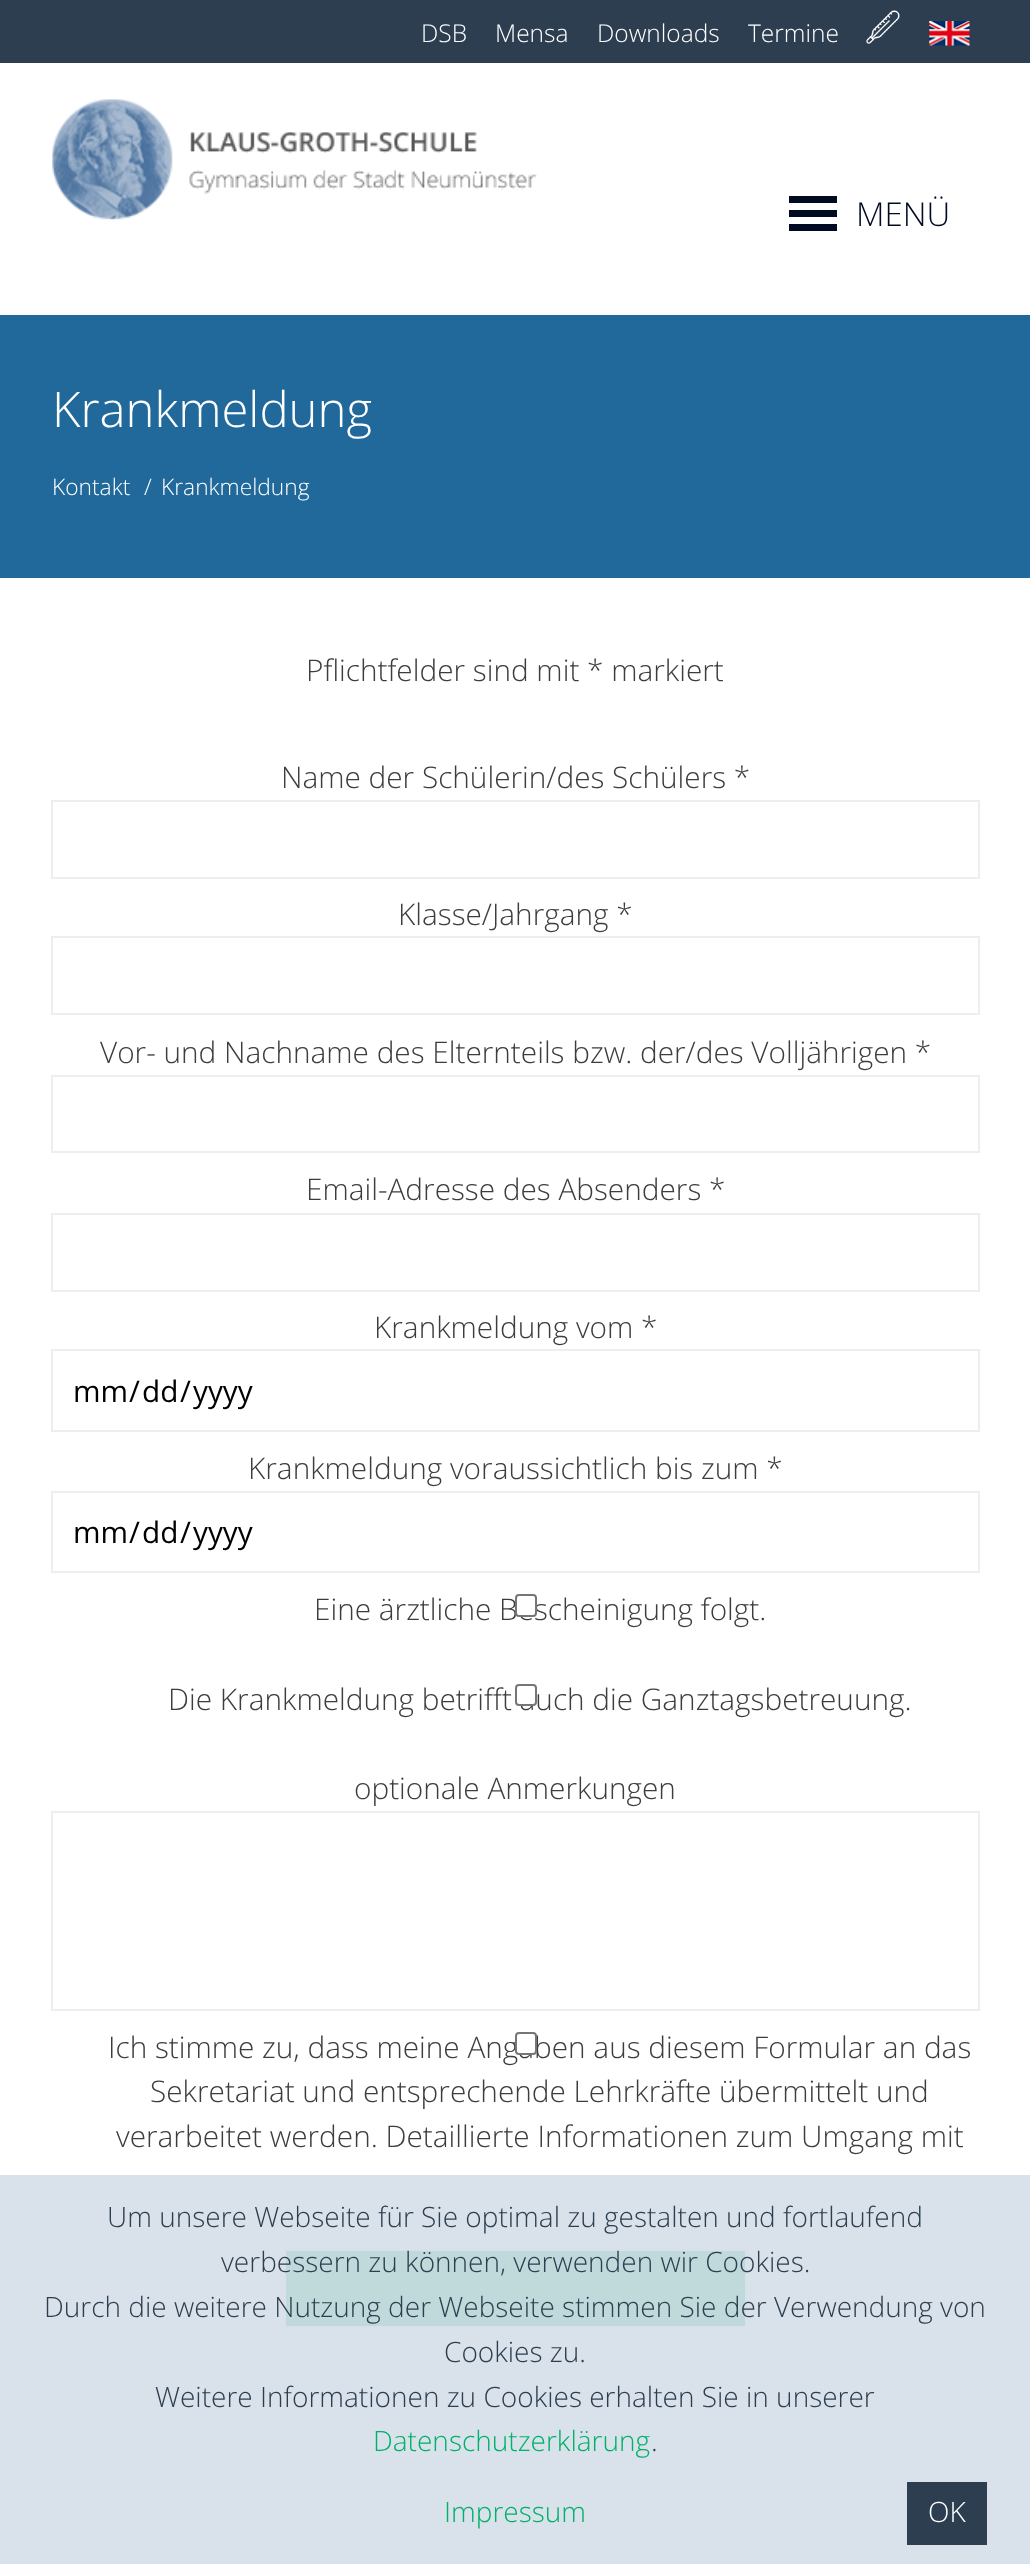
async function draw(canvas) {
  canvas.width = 1030
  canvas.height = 2564
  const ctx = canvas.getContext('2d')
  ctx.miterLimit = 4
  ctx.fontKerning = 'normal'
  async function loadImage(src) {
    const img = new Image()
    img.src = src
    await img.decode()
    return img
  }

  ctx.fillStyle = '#fff'
  ctx.fillRect(0, 0, 1030, 2564)
  ctx.fillStyle = '#2d3e50'
  ctx.fillRect(0, 0, 1030, 63)
  ctx.font = '300 24.5px Open Sans'
  ctx.fillStyle = '#fff'
  ctx.fillText('DSB', 421, 42)
  ctx.fillText('Mensa', 495, 42)
  ctx.fillText('Downloads', 597, 42)
  ctx.fillText('Termine', 748, 42)
  ctx.drawImage(await loadImage('image0.png'), 866, 10, 34, 34)
  ctx.drawImage(await loadImage('image1.png'), 929, 21, 41, 25)
  ctx.drawImage(await loadImage('image2.png'), 52, 99, 485, 121)
  ctx.fillStyle = '#000b22'
  ctx.fillRect(789, 210, 48, 7)
  ctx.fillRect(789, 196, 48, 7)
  ctx.fillRect(789, 224, 48, 7)
  ctx.font = '300 33px Open Sans'
  ctx.fillText('MENÜ', 856, 226)
  ctx.fillStyle = '#21699b'
  ctx.fillRect(0, 315, 1030, 263)
  ctx.font = '300 49px Open Sans'
  ctx.fillStyle = '#fff'
  ctx.fillText('Krankmeldung', 52, 427)
  ctx.font = '300 22.75px Open Sans'
  ctx.fillText('Kontakt', 52, 495)
  ctx.fillText('/', 144, 495)
  ctx.fillText('Krankmeldung', 161, 495)
  ctx.font = '300 29.75px Open Sans'
  ctx.fillStyle = '#3d3d3d'
  ctx.fillText('Pflichtfelder‌ sind‌ mit‌ *‌ markiert', 306, 681)
  ctx.fillText('Name der Schülerin/des Schülers *', 281, 788)
  ctx.strokeStyle = '#eee'
  ctx.lineWidth = 2
  ctx.strokeRect(52, 801, 927, 77)
  ctx.fillText('Klasse/Jahrgang *', 398, 925)
  ctx.strokeRect(52, 937, 927, 77)
  ctx.fillText('Vor- und Nachname des Elternteils bzw. der/des Volljährigen *', 100, 1063)
  ctx.strokeRect(52, 1076, 927, 76)
  ctx.fillText('Email-Adresse des Absenders *', 306, 1200)
  ctx.strokeRect(52, 1214, 927, 77)
  ctx.fillText('Krankmeldung vom *', 374, 1338)
  ctx.strokeRect(52, 1350, 927, 81)
  ctx.font = '29.75px Open Sans'
  ctx.fillStyle = '#000'
  ctx.fillText('mm', 73, 1402)
  ctx.fillText('/', 129, 1402)
  ctx.fillText('dd', 142, 1402)
  ctx.fillText('/', 180, 1402)
  ctx.fillText('yyyy', 193, 1402)
  ctx.font = '300 29.75px Open Sans'
  ctx.fillStyle = '#3d3d3d'
  ctx.fillText('Krankmeldung voraussichtlich bis zum *', 248, 1479)
  ctx.strokeRect(52, 1492, 927, 80)
  ctx.font = '29.75px Open Sans'
  ctx.fillStyle = '#000'
  ctx.fillText('mm', 73, 1543)
  ctx.fillText('/', 129, 1543)
  ctx.fillText('dd', 142, 1543)
  ctx.fillText('/', 180, 1543)
  ctx.fillText('yyyy', 193, 1543)
  ctx.font = '300 29.75px Open Sans'
  ctx.fillStyle = '#3d3d3d'
  ctx.fillText('Eine ärztliche Bescheinigung folgt.', 314, 1620)
  ctx.fillStyle = '#fff'
  ctx.beginPath()
  ctx.roundRect(516, 1595, 20, 21, 3)
  ctx.fill()
  ctx.strokeStyle = '#767676'
  ctx.stroke()
  ctx.fillStyle = '#3d3d3d'
  ctx.fillText('Die Krankmeldung betrifft auch die Ganztagsbetreuung.', 168, 1710)
  ctx.fillStyle = '#fff'
  ctx.beginPath()
  ctx.roundRect(516, 1685, 20, 20, 3)
  ctx.fill()
  ctx.stroke()
  ctx.fillStyle = '#3d3d3d'
  ctx.fillText('optionale Anmerkungen', 354, 1799)
  ctx.strokeStyle = '#eee'
  ctx.strokeRect(52, 1812, 927, 198)
  ctx.fillText('Ich stimme zu, dass meine Angaben aus diesem Formular an das', 108, 2058)
  ctx.fillStyle = '#fff'
  ctx.beginPath()
  ctx.roundRect(516, 2033, 20, 21, 3)
  ctx.fill()
  ctx.strokeStyle = '#767676'
  ctx.stroke()
  ctx.fillStyle = '#3d3d3d'
  ctx.fillText('Sekretariat und entsprechende Lehrkräfte übermittelt und', 150, 2102)
  ctx.fillText('verarbeitet werden. Detaillierte Informationen zum Umgang mit', 116, 2147)
  ctx.fillStyle = '#00b169'
  ctx.beginPath()
  ctx.rect(285, 2250, 461, 77)
  ctx.fill()
  ctx.strokeStyle = '#eee'
  ctx.stroke()
  ctx.fillStyle = '#d5dfe8e6'
  ctx.fillRect(0, 2175, 1030, 389)
  ctx.font = '300 28px Open Sans'
  ctx.fillStyle = '#2d3e50'
  ctx.fillText('Um unsere Webseite für Sie optimal zu gestalten und fortlaufend', 107, 2227)
  ctx.fillText('verbessern zu können, verwenden wir Cookies.', 221, 2272)
  ctx.fillText('Durch die weitere Nutzung der Webseite stimmen Sie der Verwendung von', 44, 2317)
  ctx.fillText('Cookies zu.', 444, 2362)
  ctx.fillText('Weitere Informationen zu Cookies erhalten Sie in unserer', 155, 2407)
  ctx.fillStyle = '#00b169'
  ctx.fillText('Datenschutzerklärung', 373, 2451)
  ctx.fillStyle = '#2d3e50'
  ctx.fillText('.', 651, 2451)
  ctx.fillRect(907, 2482, 80, 63)
  ctx.fillStyle = '#fff'
  ctx.fillText('OK', 928, 2522)
  ctx.fillStyle = '#00b169'
  ctx.fillText('Impressum', 444, 2522)
}

draw(document.querySelector('canvas'))
